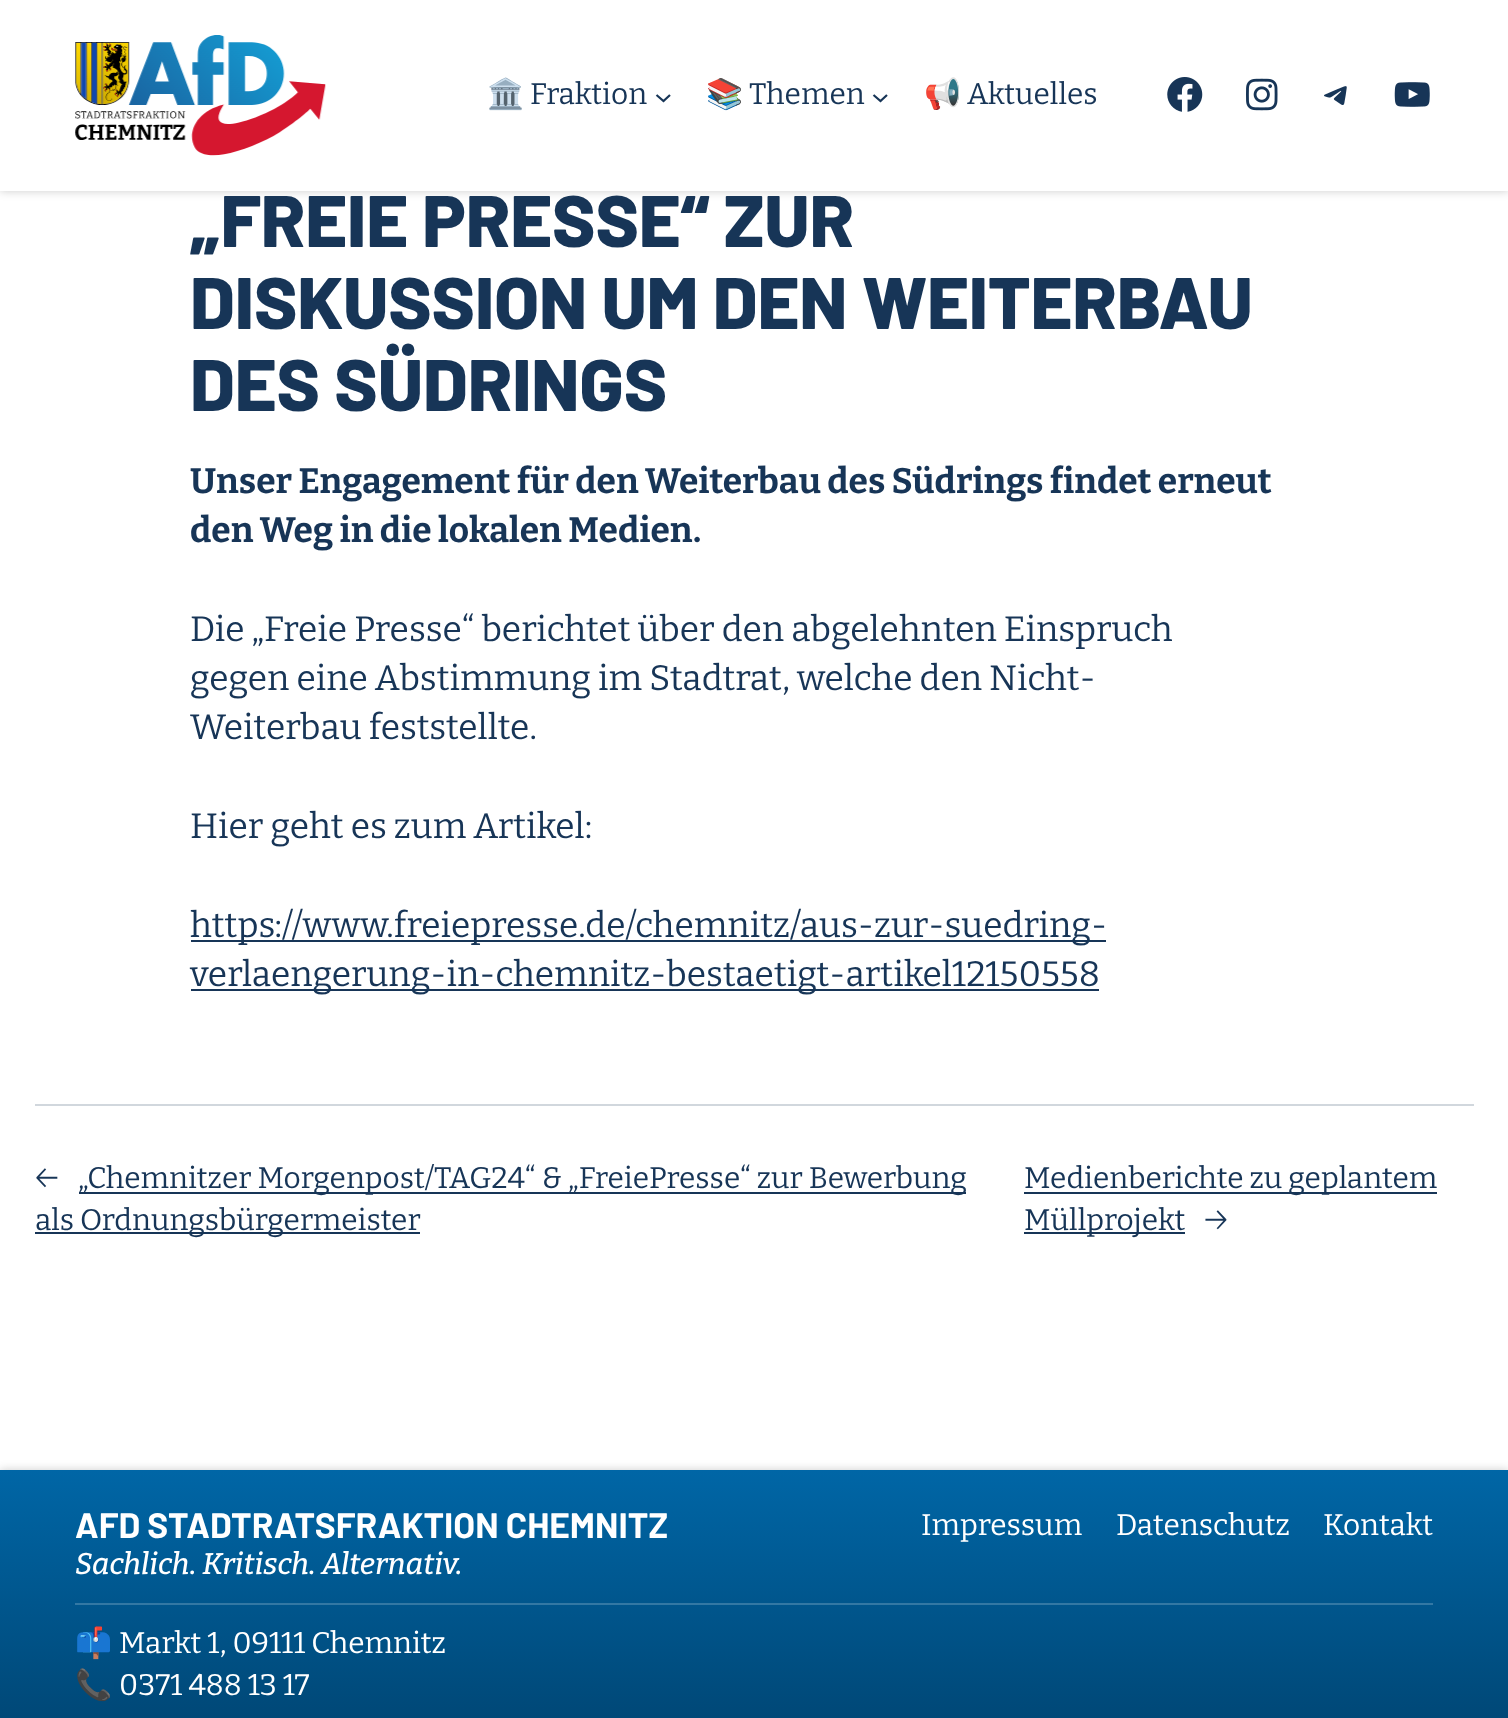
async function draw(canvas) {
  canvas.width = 1508
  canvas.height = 1718
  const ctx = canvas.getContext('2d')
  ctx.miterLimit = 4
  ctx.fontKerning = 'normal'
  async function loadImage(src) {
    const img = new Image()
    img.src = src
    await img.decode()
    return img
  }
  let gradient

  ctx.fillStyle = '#fff'
  ctx.fillRect(0, 0, 1508, 1718)
  ctx.fillStyle = '#00000033'
  ctx.filter = 'blur(5px)'
  ctx.beginPath()
  ctx.rect(0, 0, 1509, 191)
  ctx.fill()
  ctx.filter = 'none'
  ctx.fillStyle = '#fff'
  ctx.fillRect(0, 0, 1508, 191)
  ctx.drawImage(await loadImage('image0.png'), 75, 35, 251, 121)
  ctx.font = '29.85px Noto Color Emoji'
  ctx.fillStyle = '#173557'
  ctx.fillText('🏛️', 487, 104)
  ctx.font = '29.85px Bitter'
  ctx.fillText('Fraktion', 530, 104)
  ctx.beginPath()
  ctx.moveTo(656.5, 95)
  ctx.lineTo(663.5, 101)
  ctx.lineTo(670, 95)
  ctx.strokeStyle = '#173557'
  ctx.lineWidth = 2.2
  ctx.stroke()
  ctx.font = '29.85px Noto Color Emoji'
  ctx.fillText('📚', 706, 104)
  ctx.font = '29.85px Bitter'
  ctx.fillText('Themen', 749, 104)
  ctx.beginPath()
  ctx.moveTo(873.5, 95)
  ctx.lineTo(880.5, 101)
  ctx.lineTo(887, 95)
  ctx.stroke()
  ctx.font = '29.85px Noto Color Emoji'
  ctx.fillText('📢', 924, 104)
  ctx.font = '29.85px Bitter'
  ctx.fillText('Aktuelles', 967, 104)
  ctx.drawImage(await loadImage('image1.png'), 1167, 77, 36, 35)
  ctx.drawImage(await loadImage('image2.png'), 1246, 78, 32, 33)
  ctx.drawImage(await loadImage('image3.png'), 1324, 86, 23, 19)
  ctx.drawImage(await loadImage('image4.png'), 1394, 82, 36, 25)
  ctx.letterSpacing = '-0.2px'
  ctx.font = '800 72.8px Barlow'
  ctx.fillText('„FREIE PRESSE“ ZUR', 190, 247)
  ctx.fillText('DISKUSSION UM DEN WEITERBAU', 190, 329)
  ctx.fillText('DES SÜDRINGS', 190, 411)
  ctx.letterSpacing = '0px'
  ctx.font = 'bold 35.25px Bitter'
  ctx.fillText('Unser Engagement für den Weiterbau des Südrings findet erneut', 190, 493)
  ctx.fillText('den Weg in die lokalen Medien.', 190, 542)
  ctx.font = '35.25px Bitter'
  ctx.fillText('Die „Freie Presse“ berichtet über den abgelehnten Einspruch', 190, 641)
  ctx.fillText('gegen eine Abstimmung im Stadtrat, welche den Nicht-', 190, 690)
  ctx.fillText('Weiterbau feststellte.', 190, 739)
  ctx.fillText('Hier geht es zum Artikel:', 190, 838)
  ctx.fillRect(191, 940, 915, 2)
  ctx.fillText('https://www.freiepresse.de/chemnitz/aus-zur-suedring-', 190, 937)
  ctx.fillRect(191, 989, 908, 2)
  ctx.fillText('verlaengerung-in-chemnitz-bestaetigt-artikel12150558', 190, 986)
  ctx.fillStyle = '#d1d7dd'
  ctx.fillRect(35, 1104, 1439, 2)
  ctx.font = '29.85px Bitter'
  ctx.fillStyle = '#173557'
  ctx.fillText('←', 35, 1188)
  ctx.fillRect(79, 1192, 887, 2)
  ctx.fillText('„Chemnitzer Morgenpost/TAG24“ & „FreiePresse“ zur Bewerbung', 78, 1188)
  ctx.fillRect(35, 1232, 385, 2)
  ctx.fillText('als Ordnungsbürgermeister', 35, 1230)
  ctx.fillRect(1024, 1192, 413, 2)
  ctx.fillText('Medienberichte zu geplantem', 1024, 1188)
  ctx.fillRect(1024, 1232, 161, 2)
  ctx.fillText('Müllprojekt', 1024, 1230)
  ctx.fillText('→', 1204, 1230)
  ctx.fillStyle = '#00000033'
  ctx.filter = 'blur(5px)'
  ctx.beginPath()
  ctx.rect(0, 1470, 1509, 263)
  ctx.fill()
  ctx.filter = 'none'
  gradient = ctx.createLinearGradient(754, 1470, 754, 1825)
  gradient.addColorStop(0, '#0066a6')
  gradient.addColorStop(1, '#003b63')
  ctx.fillStyle = gradient
  ctx.fillRect(0, 1470, 1508, 248)
  ctx.font = 'bold 35.25px Barlow'
  ctx.fillStyle = '#fff'
  ctx.fillText('AFD STADTRATSFRAKTION CHEMNITZ', 75, 1538)
  ctx.font = 'italic 500 29.85px Bitter'
  ctx.fillText('Sachlich. Kritisch. Alternativ.', 75, 1574)
  ctx.font = '29.85px Bitter'
  ctx.fillText('Impressum', 921, 1535)
  ctx.fillText('Datenschutz', 1116, 1535)
  ctx.fillText('Kontakt', 1323, 1535)
  ctx.fillStyle = '#3378a4'
  ctx.fillRect(75, 1603, 1358, 2)
  ctx.font = '29.85px Noto Color Emoji'
  ctx.fillStyle = '#fff'
  ctx.fillText('📫', 75, 1653)
  ctx.font = '29.85px Bitter'
  ctx.fillText('Markt 1, 09111 Chemnitz', 119, 1653)
  ctx.font = '29.85px Noto Color Emoji'
  ctx.fillText('📞', 75, 1695)
  ctx.font = '29.85px Bitter'
  ctx.fillText('0371 488 13 17', 119, 1695)
}

draw(document.querySelector('canvas'))
